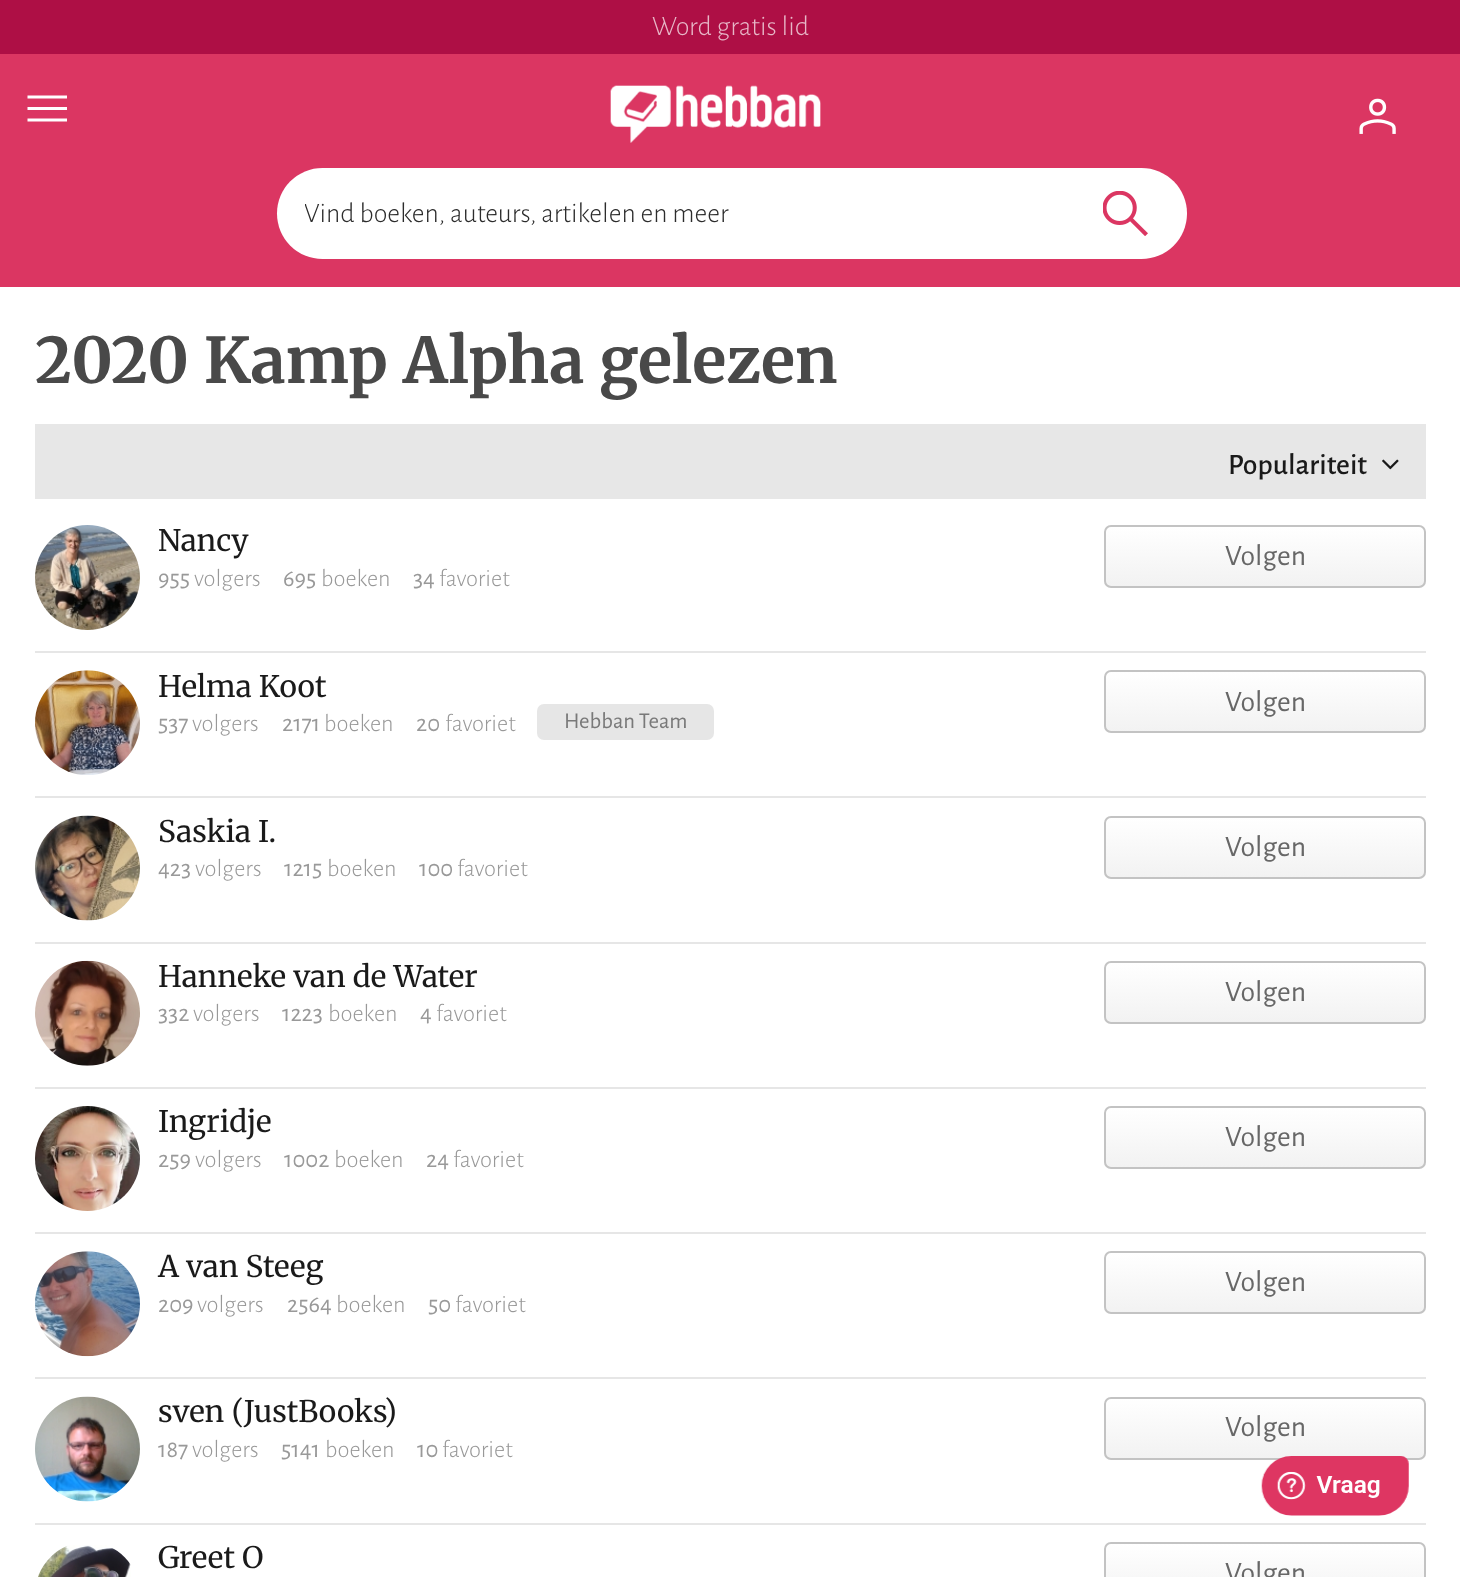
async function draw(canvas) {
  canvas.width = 1460
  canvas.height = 1577
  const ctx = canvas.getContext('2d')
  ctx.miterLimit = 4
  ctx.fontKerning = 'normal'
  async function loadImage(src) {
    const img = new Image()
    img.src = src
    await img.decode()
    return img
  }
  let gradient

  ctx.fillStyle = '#fff'
  ctx.fillRect(0, 0, 1460, 1577)
  ctx.fillStyle = '#ae0f45'
  ctx.fillRect(0, 0, 1460, 54)
  ctx.font = '300 28px Alegreya Sans'
  ctx.fillStyle = '#e7b7c7'
  ctx.fillText('Word gratis lid', 652, 35)
  ctx.fillStyle = '#db3662'
  ctx.fillRect(0, 54, 1460, 233)
  ctx.fillStyle = '#fff'
  ctx.beginPath()
  ctx.moveTo(27.5, 121.5)
  ctx.lineTo(27.5, 118.5)
  ctx.lineTo(67, 118.5)
  ctx.lineTo(67, 121.5)
  ctx.closePath()
  ctx.moveTo(27.5, 110)
  ctx.lineTo(27.5, 107)
  ctx.lineTo(67, 107)
  ctx.lineTo(67, 110)
  ctx.closePath()
  ctx.moveTo(27.5, 98.5)
  ctx.lineTo(27.5, 95.5)
  ctx.lineTo(67, 95.5)
  ctx.lineTo(67, 98.5)
  ctx.closePath()
  ctx.fill()
  ctx.drawImage(await loadImage('image0.png'), 610, 85, 211, 58)
  ctx.drawImage(await loadImage('image1.png'), 1359, 98, 37, 36)
  ctx.beginPath()
  ctx.roundRect(277, 168, 910, 91, 45.5)
  ctx.fill()
  ctx.save()
  ctx.beginPath()
  ctx.rect(305, 198, 854, 33)
  ctx.clip()
  ctx.fillStyle = '#2c2c2c'
  ctx.fillText('Vind boeken, auteurs, artikelen en meer', 304, 222)
  ctx.restore()
  ctx.drawImage(await loadImage('image2.png'), 1103, 191, 45, 45)
  ctx.font = 'bold 63px Merriweather'
  ctx.fillStyle = '#494949'
  ctx.fillText('2020 Kamp Alpha gelezen', 35, 383)
  ctx.fillStyle = '#e7e7e7'
  ctx.fillRect(35, 424, 1391, 75)
  ctx.font = '500 29.75px Alegreya Sans'
  ctx.fillStyle = '#1a1a1a'
  ctx.fillText('Populariteit', 1228, 474)
  ctx.drawImage(await loadImage('image3.png'), 1382, 459, 17, 11)
  ctx.fillStyle = '#e6e6e6'
  ctx.fillRect(35, 651, 1391, 2)
  ctx.drawImage(await loadImage('image4.png'), 35, 525, 105, 105)
  ctx.font = '29.75px Merriweather'
  ctx.fillStyle = '#1a1a1a'
  ctx.fillText('Nancy', 158, 551)
  ctx.font = '24.5px Alegreya Sans'
  ctx.fillStyle = '#999'
  ctx.fillText('955', 158, 586)
  ctx.font = '300 24.5px Alegreya Sans'
  ctx.fillText('volgers', 194, 586)
  ctx.font = '24.5px Alegreya Sans'
  ctx.fillText('695', 283, 586)
  ctx.font = '300 24.5px Alegreya Sans'
  ctx.fillText('boeken', 321, 586)
  ctx.font = '24.5px Alegreya Sans'
  ctx.fillText('34', 413, 586)
  ctx.font = '300 24.5px Alegreya Sans'
  ctx.fillText('favoriet', 439, 586)
  ctx.save()
  ctx.beginPath()
  ctx.roundRect(1104, 525, 322, 63, 7)
  ctx.clip()
  gradient = ctx.createLinearGradient(1265, 527, 1265, 586)
  gradient.addColorStop(0, '#fff')
  gradient.addColorStop(1, '#f2f2f2')
  ctx.fillStyle = gradient
  ctx.fillRect(1104, 527, 322, 59)
  ctx.restore()
  ctx.beginPath()
  ctx.roundRect(1105, 526, 320, 61, 6)
  ctx.strokeStyle = '#c3c3c3'
  ctx.lineWidth = 2
  ctx.stroke()
  ctx.font = '29.75px Alegreya Sans'
  ctx.fillStyle = '#676767'
  ctx.fillText('Volgen', 1225, 565)
  ctx.fillStyle = '#e6e6e6'
  ctx.fillRect(35, 796, 1391, 2)
  ctx.drawImage(await loadImage('image5.png'), 35, 670, 105, 105)
  ctx.font = '29.75px Merriweather'
  ctx.fillStyle = '#1a1a1a'
  ctx.fillText('Helma Koot', 158, 697)
  ctx.font = '24.5px Alegreya Sans'
  ctx.fillStyle = '#999'
  ctx.fillText('537', 158, 731)
  ctx.font = '300 24.5px Alegreya Sans'
  ctx.fillText('volgers', 192, 731)
  ctx.font = '24.5px Alegreya Sans'
  ctx.fillText('2171', 282, 731)
  ctx.font = '300 24.5px Alegreya Sans'
  ctx.fillText('boeken', 324, 731)
  ctx.font = '24.5px Alegreya Sans'
  ctx.fillText('20', 416, 731)
  ctx.font = '300 24.5px Alegreya Sans'
  ctx.fillText('favoriet', 445, 731)
  ctx.fillStyle = '#e6e6e6'
  ctx.beginPath()
  ctx.roundRect(537, 704, 177, 36, 7)
  ctx.fill()
  ctx.font = '22.75px Alegreya Sans'
  ctx.fillStyle = '#797979'
  ctx.fillText('Hebban Team', 564, 728)
  ctx.save()
  ctx.beginPath()
  ctx.roundRect(1104, 670, 322, 63, 7)
  ctx.clip()
  gradient = ctx.createLinearGradient(1265, 672, 1265, 732)
  gradient.addColorStop(0, '#fff')
  gradient.addColorStop(1, '#f2f2f2')
  ctx.fillStyle = gradient
  ctx.fillRect(1104, 672, 322, 60)
  ctx.restore()
  ctx.beginPath()
  ctx.roundRect(1105, 671, 320, 61, 6)
  ctx.stroke()
  ctx.font = '29.75px Alegreya Sans'
  ctx.fillStyle = '#676767'
  ctx.fillText('Volgen', 1225, 711)
  ctx.fillStyle = '#e6e6e6'
  ctx.fillRect(35, 942, 1391, 2)
  ctx.drawImage(await loadImage('image6.png'), 35, 815, 105, 106)
  ctx.font = '29.75px Merriweather'
  ctx.fillStyle = '#1a1a1a'
  ctx.fillText('Saskia I.', 158, 842)
  ctx.font = '24.5px Alegreya Sans'
  ctx.fillStyle = '#999'
  ctx.fillText('423', 158, 876)
  ctx.font = '300 24.5px Alegreya Sans'
  ctx.fillText('volgers', 195, 876)
  ctx.font = '24.5px Alegreya Sans'
  ctx.fillText('1215', 284, 876)
  ctx.font = '300 24.5px Alegreya Sans'
  ctx.fillText('boeken', 327, 876)
  ctx.font = '24.5px Alegreya Sans'
  ctx.fillText('100', 419, 876)
  ctx.font = '300 24.5px Alegreya Sans'
  ctx.fillText('favoriet', 457, 876)
  ctx.save()
  ctx.beginPath()
  ctx.roundRect(1104, 816, 322, 63, 7)
  ctx.clip()
  gradient = ctx.createLinearGradient(1265, 817, 1265, 877)
  gradient.addColorStop(0, '#fff')
  gradient.addColorStop(1, '#f2f2f2')
  ctx.fillStyle = gradient
  ctx.fillRect(1104, 817, 322, 60)
  ctx.restore()
  ctx.beginPath()
  ctx.roundRect(1105, 817, 320, 61, 6)
  ctx.stroke()
  ctx.font = '29.75px Alegreya Sans'
  ctx.fillStyle = '#676767'
  ctx.fillText('Volgen', 1225, 856)
  ctx.fillStyle = '#e6e6e6'
  ctx.fillRect(35, 1087, 1391, 2)
  ctx.drawImage(await loadImage('image7.png'), 35, 960, 105, 106)
  ctx.font = '29.75px Merriweather'
  ctx.fillStyle = '#1a1a1a'
  ctx.fillText('Hanneke van de Water', 158, 987)
  ctx.font = '24.5px Alegreya Sans'
  ctx.fillStyle = '#999'
  ctx.fillText('332', 158, 1021)
  ctx.font = '300 24.5px Alegreya Sans'
  ctx.fillText('volgers', 193, 1021)
  ctx.font = '24.5px Alegreya Sans'
  ctx.fillText('1223', 282, 1021)
  ctx.font = '300 24.5px Alegreya Sans'
  ctx.fillText('boeken', 328, 1021)
  ctx.font = '24.5px Alegreya Sans'
  ctx.fillText('4', 420, 1021)
  ctx.font = '300 24.5px Alegreya Sans'
  ctx.fillText('favoriet', 436, 1021)
  ctx.save()
  ctx.beginPath()
  ctx.roundRect(1104, 961, 322, 63, 7)
  ctx.clip()
  gradient = ctx.createLinearGradient(1265, 963, 1265, 1022)
  gradient.addColorStop(0, '#fff')
  gradient.addColorStop(1, '#f2f2f2')
  ctx.fillStyle = gradient
  ctx.fillRect(1104, 963, 322, 59)
  ctx.restore()
  ctx.beginPath()
  ctx.roundRect(1105, 962, 320, 61, 6)
  ctx.stroke()
  ctx.font = '29.75px Alegreya Sans'
  ctx.fillStyle = '#676767'
  ctx.fillText('Volgen', 1225, 1001)
  ctx.fillStyle = '#e6e6e6'
  ctx.fillRect(35, 1232, 1391, 2)
  ctx.drawImage(await loadImage('image8.png'), 35, 1106, 105, 105)
  ctx.font = '29.75px Merriweather'
  ctx.fillStyle = '#1a1a1a'
  ctx.fillText('Ingridje', 158, 1132)
  ctx.font = '24.5px Alegreya Sans'
  ctx.fillStyle = '#999'
  ctx.fillText('259', 158, 1167)
  ctx.font = '300 24.5px Alegreya Sans'
  ctx.fillText('volgers', 195, 1167)
  ctx.font = '24.5px Alegreya Sans'
  ctx.fillText('1002', 284, 1167)
  ctx.font = '300 24.5px Alegreya Sans'
  ctx.fillText('boeken', 334, 1167)
  ctx.font = '24.5px Alegreya Sans'
  ctx.fillText('24', 426, 1167)
  ctx.font = '300 24.5px Alegreya Sans'
  ctx.fillText('favoriet', 453, 1167)
  ctx.save()
  ctx.beginPath()
  ctx.roundRect(1104, 1106, 322, 63, 7)
  ctx.clip()
  gradient = ctx.createLinearGradient(1265, 1108, 1265, 1167)
  gradient.addColorStop(0, '#fff')
  gradient.addColorStop(1, '#f2f2f2')
  ctx.fillStyle = gradient
  ctx.fillRect(1104, 1108, 322, 59)
  ctx.restore()
  ctx.beginPath()
  ctx.roundRect(1105, 1107, 320, 61, 6)
  ctx.stroke()
  ctx.font = '29.75px Alegreya Sans'
  ctx.fillStyle = '#676767'
  ctx.fillText('Volgen', 1225, 1146)
  ctx.fillStyle = '#e6e6e6'
  ctx.fillRect(35, 1377, 1391, 2)
  ctx.drawImage(await loadImage('image9.png'), 35, 1251, 105, 106)
  ctx.font = '29.75px Merriweather'
  ctx.fillStyle = '#1a1a1a'
  ctx.fillText('A van Steeg', 158, 1277)
  ctx.font = '24.5px Alegreya Sans'
  ctx.fillStyle = '#999'
  ctx.fillText('209', 158, 1312)
  ctx.font = '300 24.5px Alegreya Sans'
  ctx.fillText('volgers', 197, 1312)
  ctx.font = '24.5px Alegreya Sans'
  ctx.fillText('2564', 287, 1312)
  ctx.font = '300 24.5px Alegreya Sans'
  ctx.fillText('boeken', 336, 1312)
  ctx.font = '24.5px Alegreya Sans'
  ctx.fillText('50', 428, 1312)
  ctx.font = '300 24.5px Alegreya Sans'
  ctx.fillText('favoriet', 455, 1312)
  ctx.save()
  ctx.beginPath()
  ctx.roundRect(1104, 1251, 322, 63, 7)
  ctx.clip()
  gradient = ctx.createLinearGradient(1265, 1253, 1265, 1313)
  gradient.addColorStop(0, '#fff')
  gradient.addColorStop(1, '#f2f2f2')
  ctx.fillStyle = gradient
  ctx.fillRect(1104, 1253, 322, 60)
  ctx.restore()
  ctx.beginPath()
  ctx.roundRect(1105, 1252, 320, 61, 6)
  ctx.stroke()
  ctx.font = '29.75px Alegreya Sans'
  ctx.fillStyle = '#676767'
  ctx.fillText('Volgen', 1225, 1291)
  ctx.fillStyle = '#e6e6e6'
  ctx.fillRect(35, 1523, 1391, 2)
  ctx.drawImage(await loadImage('image10.png'), 35, 1396, 105, 106)
  ctx.font = '29.75px Merriweather'
  ctx.fillStyle = '#1a1a1a'
  ctx.fillText('sven (JustBooks)', 158, 1422)
  ctx.font = '24.5px Alegreya Sans'
  ctx.fillStyle = '#999'
  ctx.fillText('187', 158, 1457)
  ctx.font = '300 24.5px Alegreya Sans'
  ctx.fillText('volgers', 192, 1457)
  ctx.font = '24.5px Alegreya Sans'
  ctx.fillText('5141', 281, 1457)
  ctx.font = '300 24.5px Alegreya Sans'
  ctx.fillText('boeken', 325, 1457)
  ctx.font = '24.5px Alegreya Sans'
  ctx.fillText('10', 417, 1457)
  ctx.font = '300 24.5px Alegreya Sans'
  ctx.fillText('favoriet', 442, 1457)
  ctx.save()
  ctx.beginPath()
  ctx.roundRect(1104, 1397, 322, 63, 7)
  ctx.clip()
  gradient = ctx.createLinearGradient(1265, 1398, 1265, 1458)
  gradient.addColorStop(0, '#fff')
  gradient.addColorStop(1, '#f2f2f2')
  ctx.fillStyle = gradient
  ctx.fillRect(1104, 1398, 322, 60)
  ctx.restore()
  ctx.beginPath()
  ctx.roundRect(1105, 1398, 320, 61, 6)
  ctx.stroke()
  ctx.font = '29.75px Alegreya Sans'
  ctx.fillStyle = '#676767'
  ctx.fillText('Volgen', 1225, 1436)
  ctx.drawImage(await loadImage('image11.png'), 38, 1545, 93, 32)
  ctx.font = '29.75px Merriweather'
  ctx.fillStyle = '#1a1a1a'
  ctx.fillText('Greet O', 158, 1568)
  ctx.save()
  ctx.beginPath()
  ctx.roundRect(1104, 1542, 322, 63, 7)
  ctx.clip()
  gradient = ctx.createLinearGradient(1265, 1544, 1265, 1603)
  gradient.addColorStop(0, '#fff')
  gradient.addColorStop(1, '#f2f2f2')
  ctx.fillStyle = gradient
  ctx.fillRect(1104, 1544, 322, 33)
  ctx.restore()
  ctx.beginPath()
  ctx.roundRect(1105, 1543, 320, 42, 6)
  ctx.stroke()
  ctx.font = '29.75px Alegreya Sans'
  ctx.fillStyle = '#676767'
  ctx.fillText('Volgen', 1225, 1582)
  ctx.drawImage(await loadImage('image12.png'), 1261, 1456, 148, 60)
}

draw(document.querySelector('canvas'))
